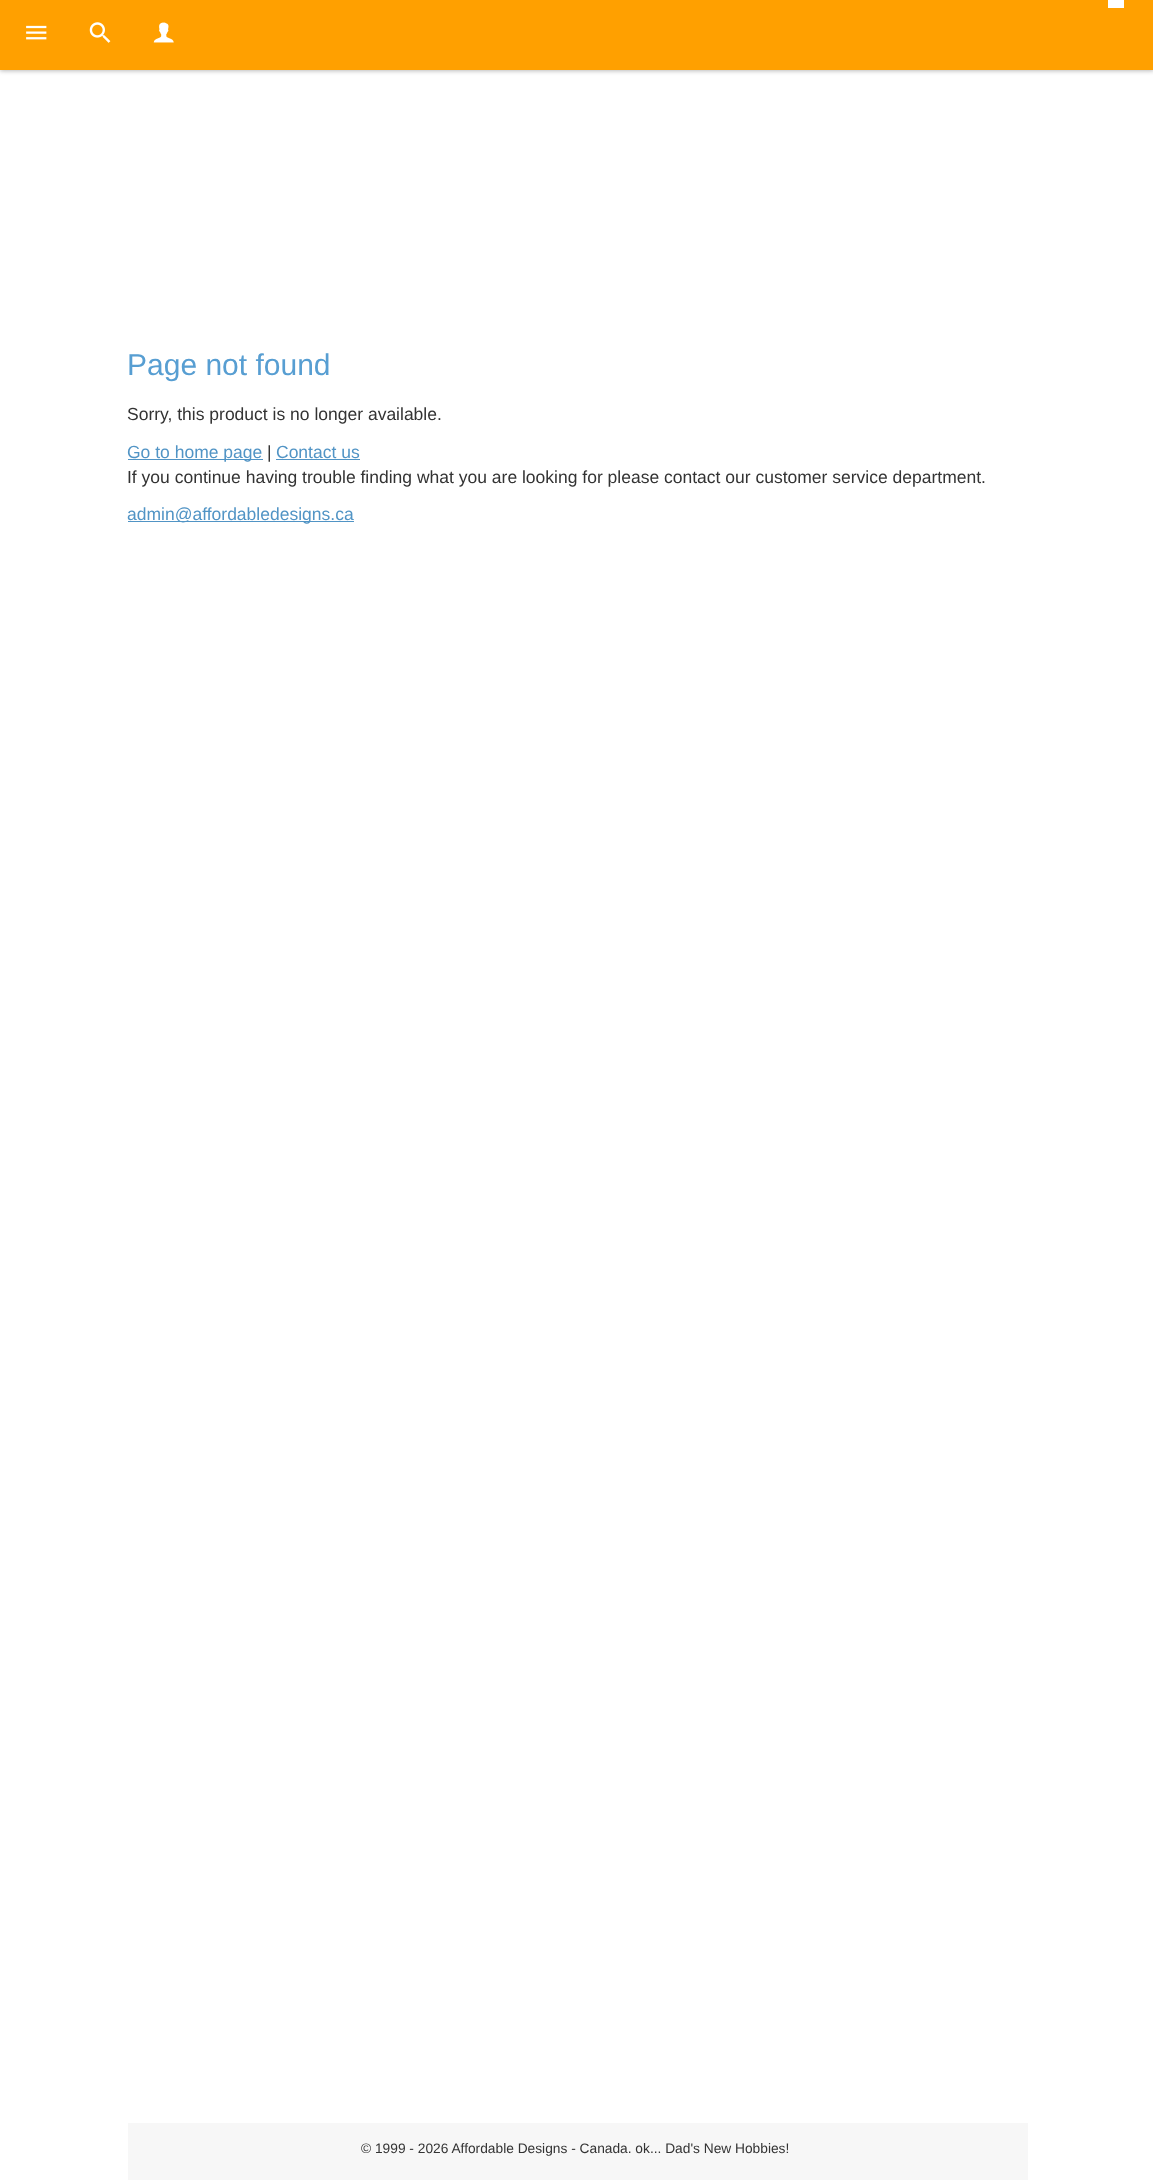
async function draw(canvas) {
  canvas.width = 1153
  canvas.height = 2180
  const ctx = canvas.getContext('2d')
  ctx.miterLimit = 4
  ctx.fontKerning = 'normal'
  async function loadImage(src) {
    const img = new Image()
    img.src = src
    await img.decode()
    return img
  }

  ctx.fillStyle = '#fff'
  ctx.fillRect(0, 0, 1153, 2180)
  ctx.fillStyle = '#bababa'
  ctx.filter = 'blur(2px)'
  ctx.beginPath()
  ctx.rect(0, 1, 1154, 70)
  ctx.fill()
  ctx.filter = 'none'
  ctx.fillStyle = '#ffa000'
  ctx.fillRect(0, 0, 1153, 70)
  ctx.drawImage(await loadImage('image0.png'), 26, 25, 21, 15)
  ctx.drawImage(await loadImage('image1.png'), 89, 22, 22, 21)
  ctx.drawImage(await loadImage('image2.png'), 153, 22, 21, 21)
  ctx.fillStyle = '#fff'
  ctx.fillRect(1108, 0, 16, 8)
  ctx.font = '30px Liberation Sans'
  ctx.fillStyle = '#579ed2'
  ctx.fillText('Page not found', 127, 375)
  ctx.font = '17.5px Liberation Sans'
  ctx.fillStyle = '#333'
  ctx.fillText('Sorry, this product is no longer available.', 127, 420)
  ctx.fillStyle = '#5194c5'
  ctx.fillRect(128, 459, 135, 1)
  ctx.fillText('Go to home page', 127, 458)
  ctx.fillStyle = '#333'
  ctx.fillText('|', 267, 458)
  ctx.fillStyle = '#5194c5'
  ctx.fillText('Contact us', 276, 458)
  ctx.fillRect(276, 459, 84, 1)
  ctx.fillStyle = '#333'
  ctx.fillText('If you continue having trouble finding what you are looking for please contact our customer service department.', 127, 483)
  ctx.fillStyle = '#5194c5'
  ctx.fillRect(128, 521, 226, 1)
  ctx.fillText('admin@affordabledesigns.ca', 127, 520)
  ctx.fillStyle = '#f7f7f7'
  ctx.fillRect(128, 2123, 900, 57)
  ctx.font = '13.75px Liberation Sans'
  ctx.fillStyle = '#333'
  ctx.fillText('© 1999 - 2026 Affordable Designs - Canada. ok... Dad\'s New Hobbies!', 361, 2153)
}

draw(document.querySelector('canvas'))
